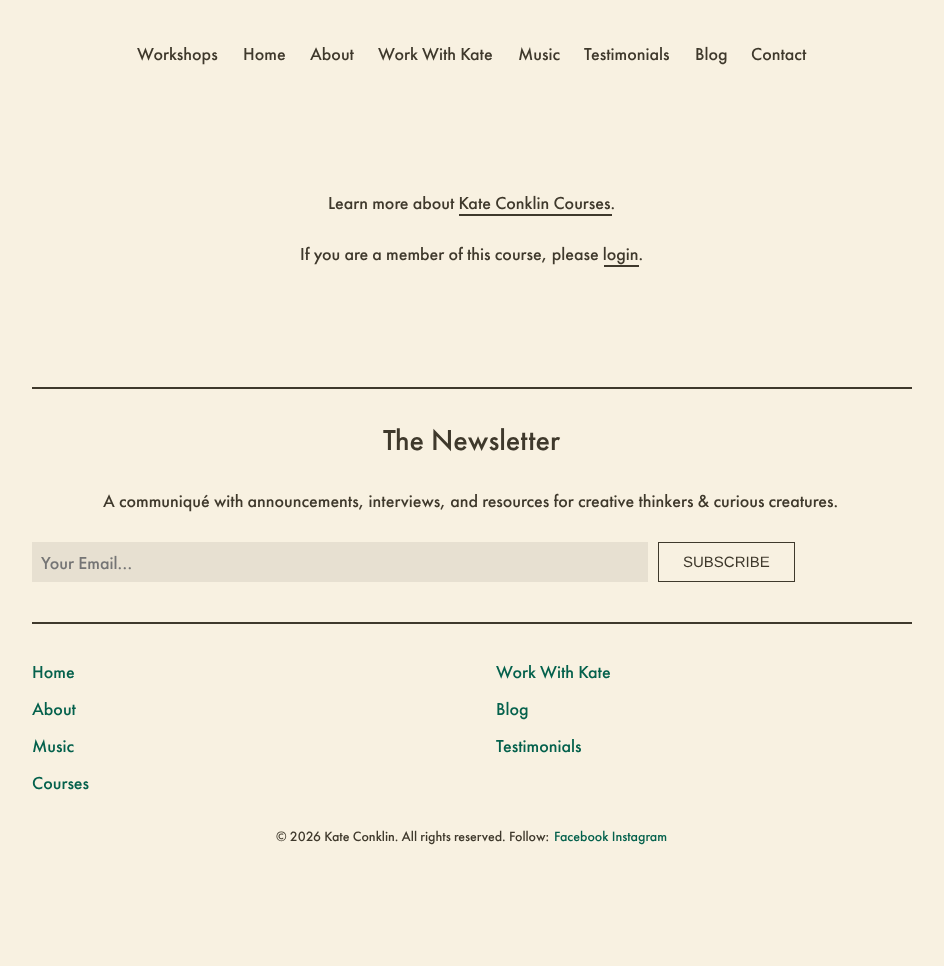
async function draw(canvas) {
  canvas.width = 944
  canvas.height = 966
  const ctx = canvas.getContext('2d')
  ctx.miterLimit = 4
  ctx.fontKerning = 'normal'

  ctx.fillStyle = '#f8f1e1'
  ctx.fillRect(0, 0, 944, 966)
  ctx.font = '500 18px Futura PT'
  ctx.fillStyle = '#3f392c'
  ctx.fillText('Workshops', 137, 60)
  ctx.fillText('Home', 243, 60)
  ctx.fillText('About', 310, 60)
  ctx.fillText('Work With Kate', 378, 60)
  ctx.fillText('Music', 518, 60)
  ctx.fillText('Testimonials', 584, 60)
  ctx.fillText('Blog', 695, 60)
  ctx.fillText('Contact', 751, 60)
  ctx.fillText('Learn more about Kate Conklin Courses.', 328, 209)
  ctx.fillRect(459, 214, 153, 2)
  ctx.fillText('If you are a member of this course, please login.', 300, 260)
  ctx.fillRect(604, 265, 35, 2)
  ctx.fillRect(32, 387, 880, 2)
  ctx.font = '500 30px Futura PT'
  ctx.fillText('The Newsletter', 383, 450)
  ctx.font = '500 18px Futura PT'
  ctx.fillText('A communiqué with announcements, interviews, and resources for creative thinkers & curious creatures.', 103, 507)
  ctx.fillStyle = '#e7e0d1'
  ctx.fillRect(32, 542, 616, 40)
  ctx.fillStyle = '#757575'
  ctx.fillText('Your Email...', 41, 569)
  ctx.strokeStyle = '#3f392c'
  ctx.strokeRect(658.5, 542.5, 136, 39)
  ctx.font = '15px Liberation Sans'
  ctx.fillStyle = '#3f392c'
  ctx.fillText('SUBSCRIBE', 683, 567)
  ctx.fillRect(32, 622, 880, 2)
  ctx.font = '500 18px Futura PT'
  ctx.fillStyle = '#04614c'
  ctx.fillText('Home', 32, 678)
  ctx.fillText('About', 32, 715)
  ctx.fillText('Music', 32, 752)
  ctx.fillText('Courses', 32, 789)
  ctx.fillText('Work With Kate', 496, 678)
  ctx.fillText('Blog', 496, 715)
  ctx.fillText('Testimonials', 496, 752)
  ctx.font = '500 14px Futura PT'
  ctx.fillStyle = '#3f392c'
  ctx.fillText('© 2026 Kate Conklin. All rights reserved. Follow:', 276, 841)
  ctx.fillStyle = '#04614c'
  ctx.fillText('Facebook Instagram', 554, 841)
}

draw(document.querySelector('canvas'))
